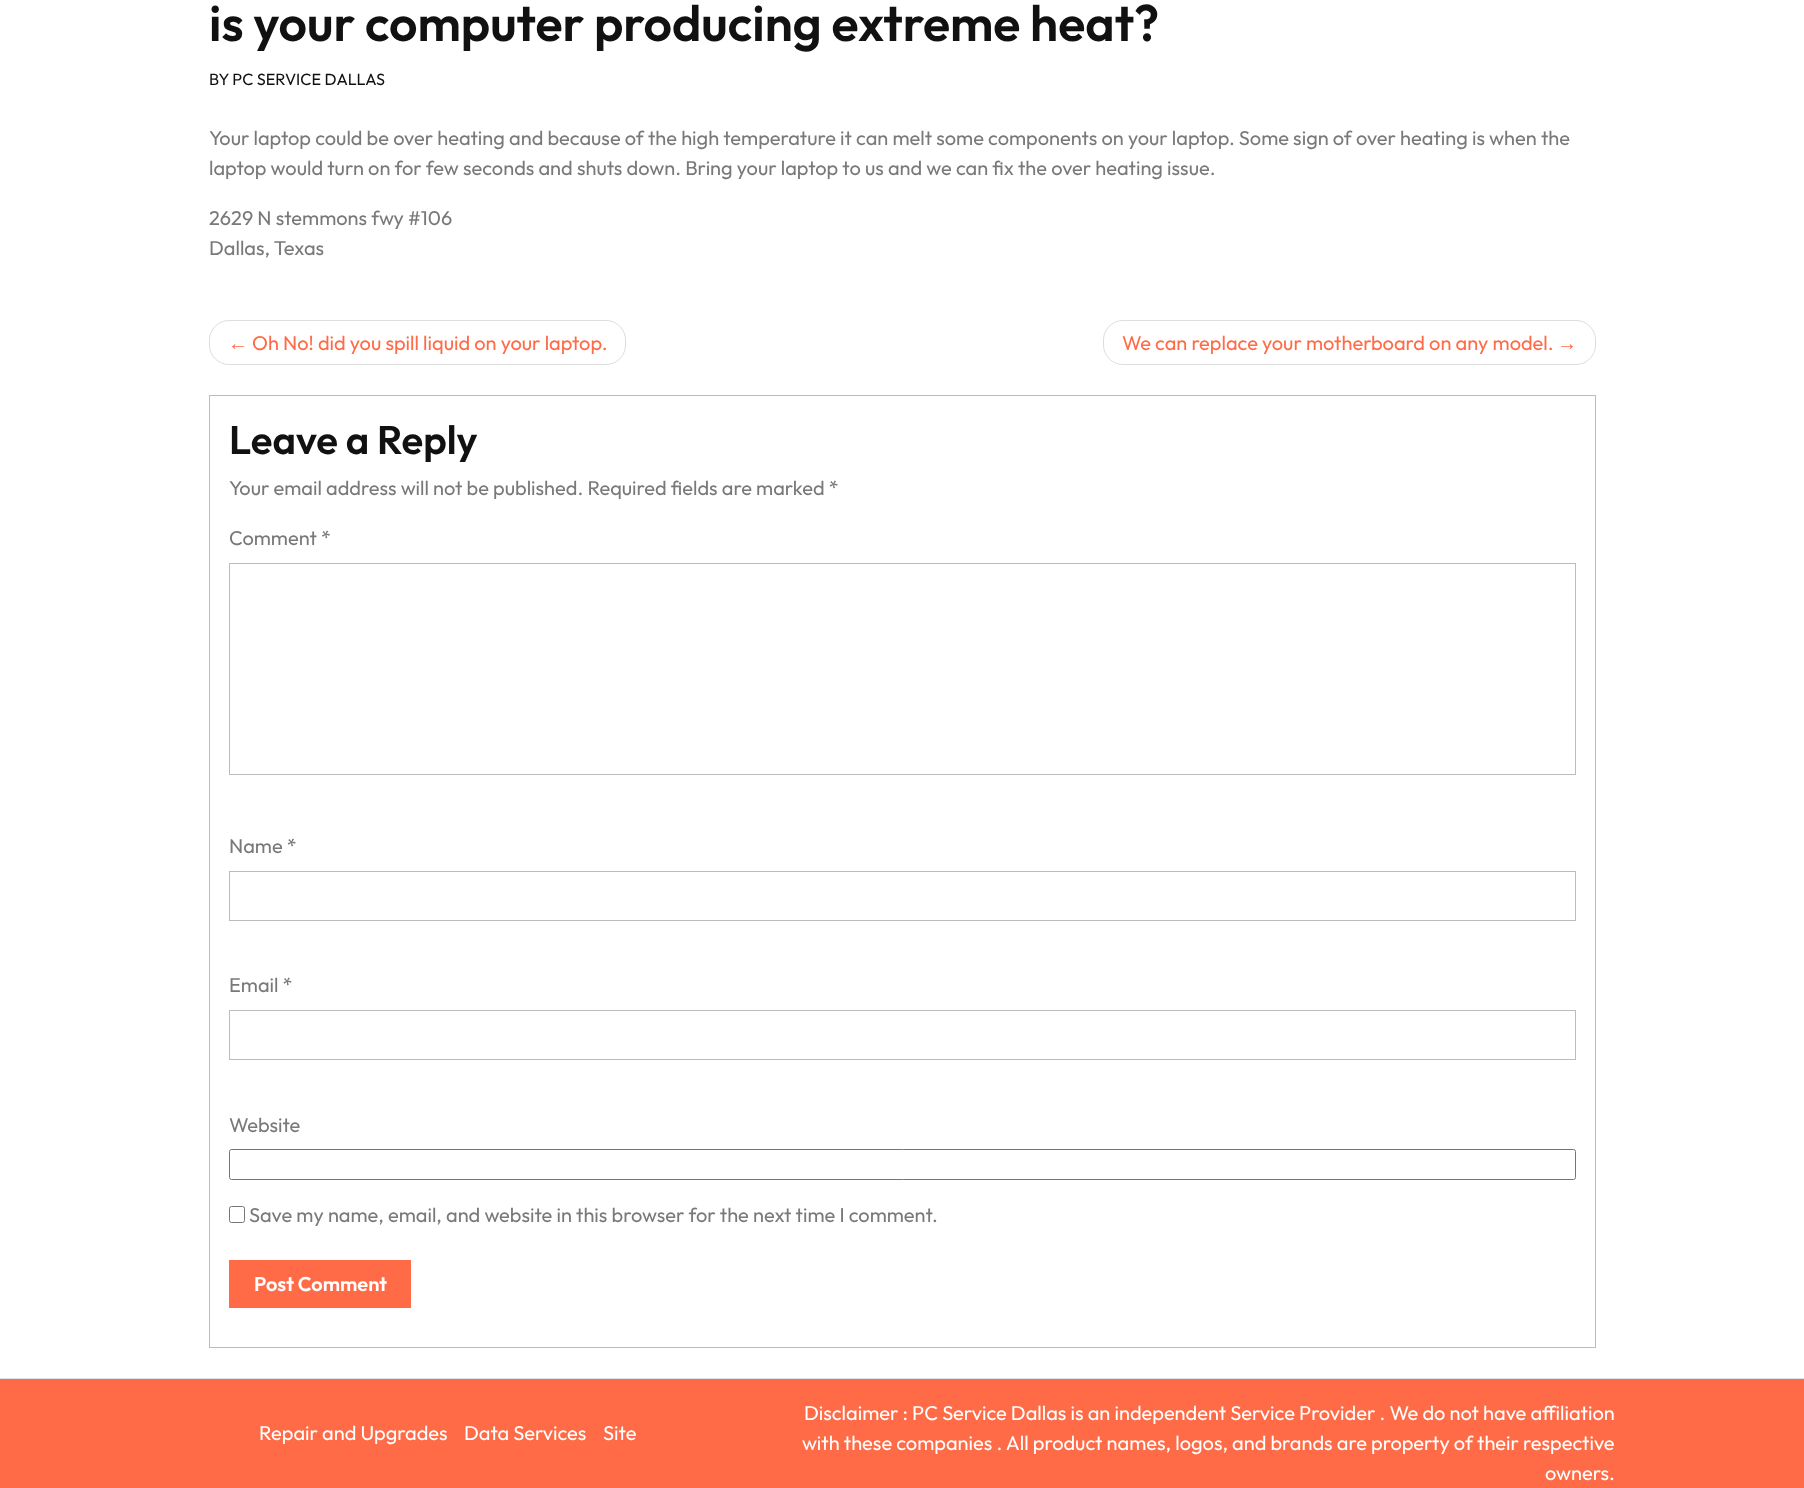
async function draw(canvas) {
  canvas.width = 1804
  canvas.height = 1488
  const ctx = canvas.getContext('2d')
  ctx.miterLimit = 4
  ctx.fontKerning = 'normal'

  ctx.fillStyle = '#fff'
  ctx.fillRect(0, 0, 1804, 1488)
  ctx.font = '600 50px Outfit'
  ctx.fillStyle = '#111'
  ctx.fillText('is your computer producing extreme heat?', 209, 41)
  ctx.font = '16.25px Outfit'
  ctx.fillText('BY PC SERVICE DALLAS', 209, 85)
  ctx.font = '20px Outfit'
  ctx.fillStyle = '#797979'
  ctx.fillText('Your laptop could be over heating and because of the high temperature it can melt some components on your laptop. Some sign of over heating is when the', 209, 145)
  ctx.fillText('laptop would turn on for few seconds and shuts down. Bring your laptop to us and we can fix the over heating issue.', 209, 175)
  ctx.fillText('2629 N stemmons fwy #106', 209, 225)
  ctx.fillText('Dallas, Texas', 209, 255)
  ctx.beginPath()
  ctx.roundRect(209.5, 320.5, 416, 44, 19.5)
  ctx.strokeStyle = '#ddd'
  ctx.stroke()
  ctx.font = '20px Liberation Sans'
  ctx.fillStyle = '#ff6b46'
  ctx.fillText('←', 228, 350)
  ctx.font = '20px Outfit'
  ctx.fillText('Oh No! did you spill liquid on your laptop.', 252, 350)
  ctx.beginPath()
  ctx.roundRect(1103.5, 320.5, 492, 44, 19.5)
  ctx.stroke()
  ctx.fillText('We can replace your motherboard on any model.', 1122, 350)
  ctx.font = '20px Liberation Sans'
  ctx.fillText('→', 1557, 350)
  ctx.strokeStyle = '#bcbcbc'
  ctx.strokeRect(209.5, 395.5, 1386, 952)
  ctx.font = '600 40px Outfit'
  ctx.fillStyle = '#111'
  ctx.fillText('Leave a Reply', 229, 454)
  ctx.font = '20px Outfit'
  ctx.fillStyle = '#797979'
  ctx.fillText('Your email address will not be published. Required fields are marked *', 229, 495)
  ctx.fillText('Comment *', 229, 545)
  ctx.strokeRect(229.5, 563.5, 1346, 211)
  ctx.fillText('Name *', 229, 853)
  ctx.strokeRect(229.5, 871.5, 1346, 49)
  ctx.fillText('Email *', 229, 992)
  ctx.strokeRect(229.5, 1010.5, 1346, 49)
  ctx.fillText('Website', 229, 1132)
  ctx.beginPath()
  ctx.roundRect(229.5, 1149.5, 1346, 30, 2)
  ctx.strokeStyle = '#767676'
  ctx.stroke()
  ctx.beginPath()
  ctx.roundRect(229.5, 1206.5, 15, 16, 2)
  ctx.stroke()
  ctx.fillText('Save my name, email, and website in this browser for the next time I comment.', 249, 1222)
  ctx.fillStyle = '#ff6b46'
  ctx.fillRect(229, 1260, 182, 48)
  ctx.font = '600 20px Outfit'
  ctx.fillStyle = '#fff'
  ctx.fillText('Post Comment', 254, 1291)
  ctx.fillStyle = '#ff6b46'
  ctx.fillRect(0, 1379, 1804, 109)
  ctx.fillStyle = '#dee2e6'
  ctx.fillRect(0, 1378, 1804, 1)
  ctx.font = '20px Outfit'
  ctx.fillStyle = '#fff'
  ctx.fillText('Repair and Upgrades', 259, 1440)
  ctx.fillText('Data Services', 464, 1440)
  ctx.fillText('Site', 603, 1440)
  ctx.fillText('Disclaimer : PC Service Dallas is an independent Service Provider . We do not have affiliation', 804, 1420)
  ctx.fillText('with these companies . All product names, logos, and brands are property of their respective', 802, 1450)
  ctx.fillText('owners.', 1545, 1480)
}

draw(document.querySelector('canvas'))
